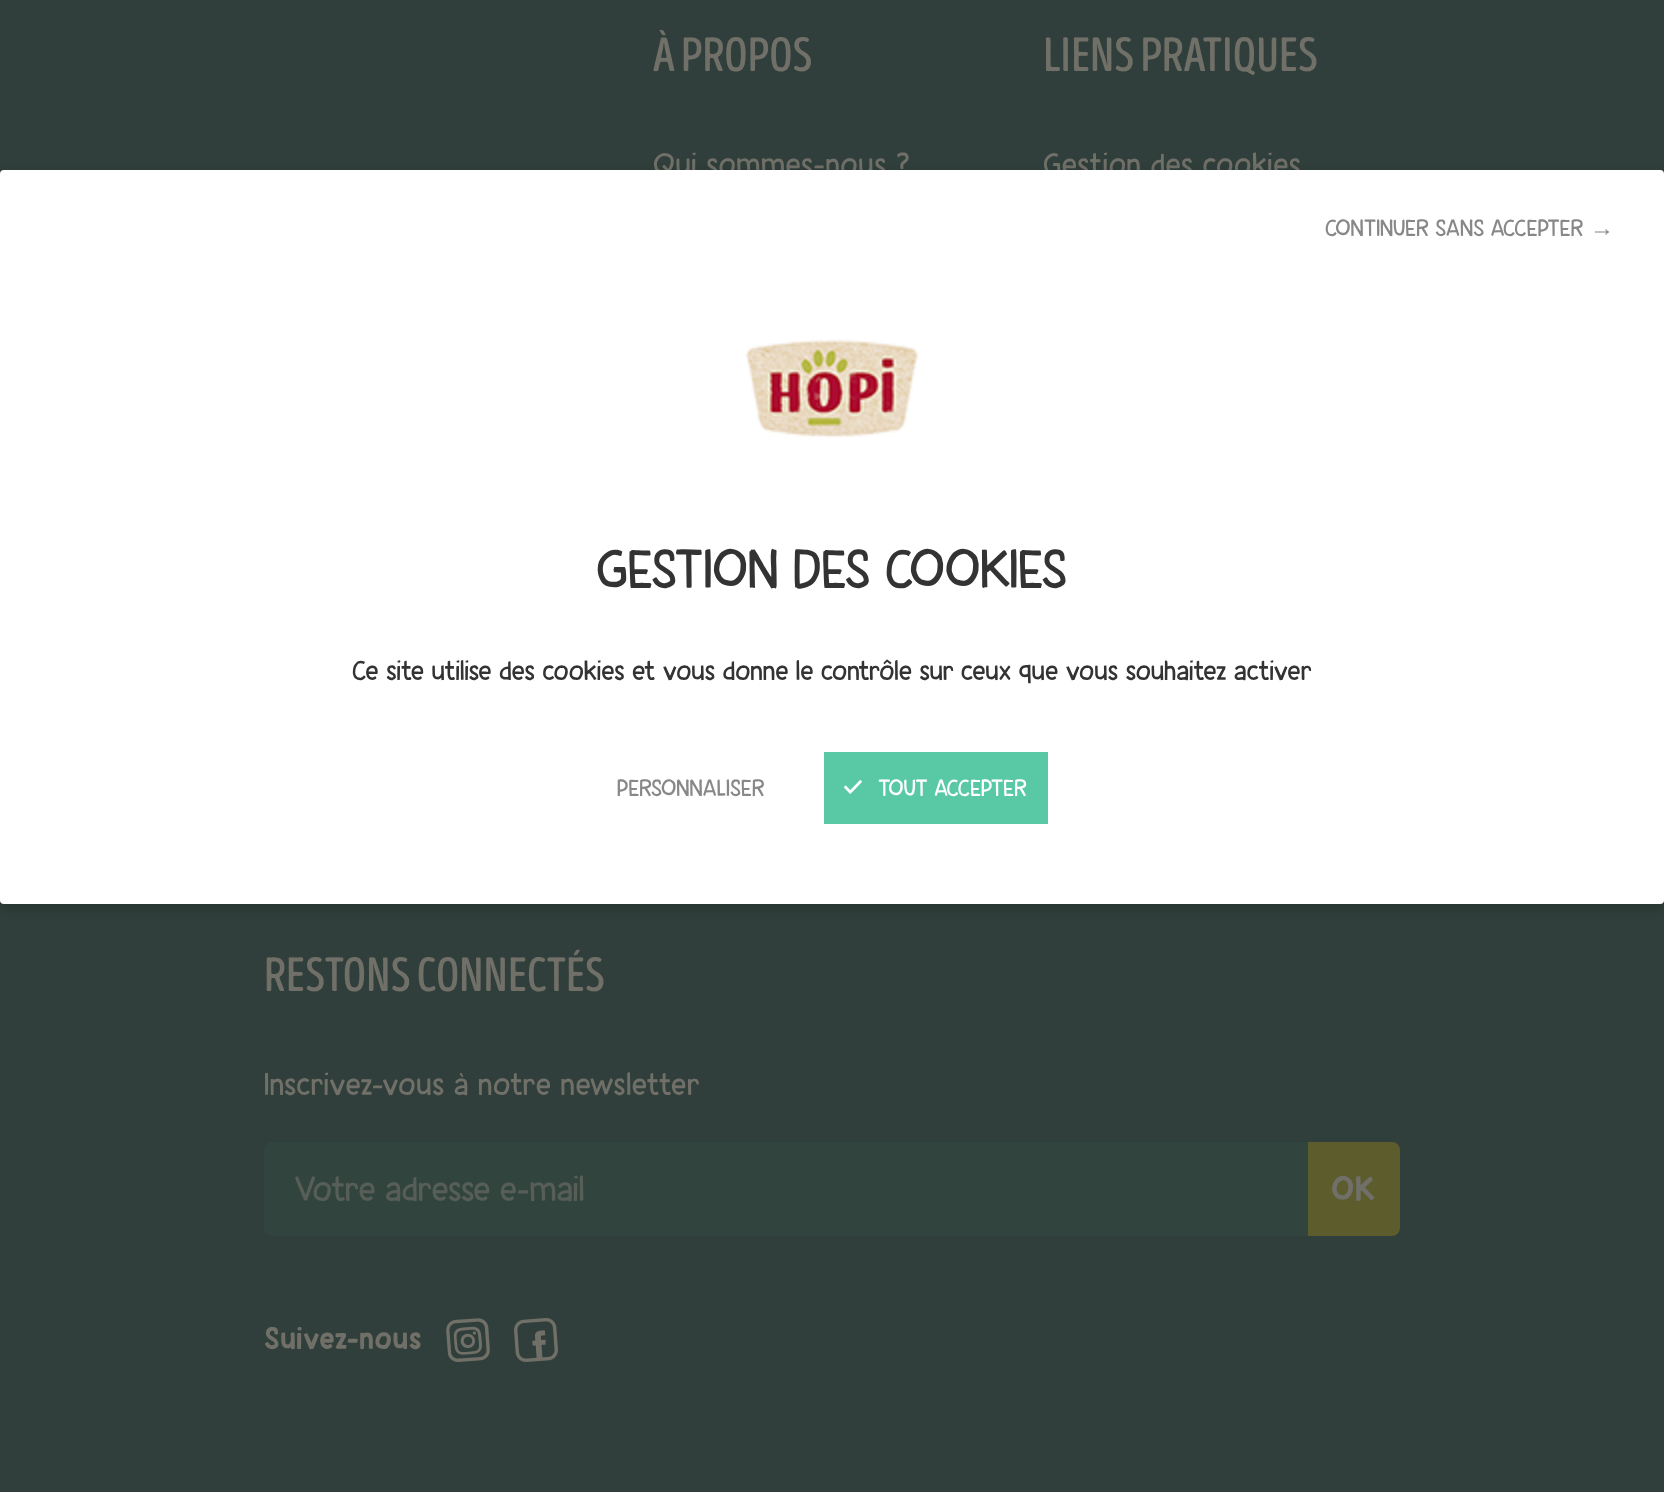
async function draw(canvas) {
  canvas.width = 1664
  canvas.height = 1492
  const ctx = canvas.getContext('2d')
  ctx.miterLimit = 4
  ctx.fontKerning = 'normal'
  async function loadImage(src) {
    const img = new Image()
    img.src = src
    await img.decode()
    return img
  }

  ctx.fillStyle = '#303f3b'
  ctx.fillRect(0, 0, 1664, 1492)
  ctx.font = '48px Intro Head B'
  ctx.fillStyle = '#706f68'
  ctx.fillText('À PROPOS', 653, 71)
  ctx.letterSpacing = '0.65px'
  ctx.font = '32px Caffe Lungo'
  ctx.fillText('Qui sommes-nous ?', 653, 175)
  ctx.letterSpacing = '0px'
  ctx.font = '48px Intro Head B'
  ctx.fillText('LIENS PRATIQUES', 1043, 71)
  ctx.letterSpacing = '0.65px'
  ctx.font = '32px Caffe Lungo'
  ctx.fillText('Gestion des cookies', 1043, 175)
  ctx.letterSpacing = '0px'
  ctx.font = '48px Intro Head B'
  ctx.fillText('RESTONS CONNECTÉS', 264, 991)
  ctx.letterSpacing = '0.65px'
  ctx.font = '32px Caffe Lungo'
  ctx.fillText('Inscrivez-vous à notre newsletter', 264, 1095)
  ctx.fillStyle = '#31443e'
  ctx.beginPath()
  ctx.roundRect(264, 1142, 1044, 94, [8, 0, 0, 8])
  ctx.fill()
  ctx.letterSpacing = '0px'
  ctx.font = '36px Caffe Lungo'
  ctx.fillStyle = '#575e58'
  ctx.fillText('Votre adresse e-mail', 294, 1201)
  ctx.fillStyle = '#5c5c2c'
  ctx.beginPath()
  ctx.roundRect(1308, 1142, 92, 94, [0, 8, 8, 0])
  ctx.fill()
  ctx.letterSpacing = '1px'
  ctx.font = 'bold 36px Caffe Lungo'
  ctx.fillStyle = '#706f68'
  ctx.fillText('OK', 1331, 1201)
  ctx.letterSpacing = '0.65px'
  ctx.font = 'bold 32px Caffe Lungo'
  ctx.fillText('Suivez-nous', 264, 1349)
  ctx.drawImage(await loadImage('image0.png'), 446, 1318, 44, 44)
  ctx.drawImage(await loadImage('image1.png'), 514, 1318, 44, 44)
  ctx.fillStyle = '#00000033'
  ctx.filter = 'blur(6px)'
  ctx.beginPath()
  ctx.roundRect(0, 174, 1664, 734, 4)
  ctx.fill()
  ctx.filter = 'none'
  ctx.fillStyle = '#fff'
  ctx.beginPath()
  ctx.roundRect(0, 170, 1664, 734, 4)
  ctx.fill()
  ctx.letterSpacing = '0px'
  ctx.font = '24px Caffe Lungo'
  ctx.fillStyle = '#888'
  ctx.fillText('CONTINUER SANS ACCEPTER', 1325, 236)
  ctx.font = '24px Liberation Sans'
  ctx.fillText('→', 1590, 236)
  ctx.font = '24px Caffe Lungo'
  ctx.fillText('PERSONNALISER', 617, 796)
  ctx.fillStyle = '#59c9a5'
  ctx.fillRect(824, 752, 224, 72)
  ctx.drawImage(await loadImage('image2.png'), 844, 780, 18, 14)
  ctx.fillStyle = '#fff'
  ctx.fillText('TOUT ACCEPTER', 878, 796)
  ctx.drawImage(await loadImage('image3.png'), 745, 339, 174, 99)
  ctx.font = '56px Caffe Lungo'
  ctx.fillStyle = '#333'
  ctx.fillText('GESTION DES COOKIES', 596, 588)
  ctx.font = '28px Caffe Lungo'
  ctx.fillText('Ce site utilise des cookies et vous donne le contrôle sur ceux que vous souhaitez activer', 352, 680)
}

draw(document.querySelector('canvas'))
